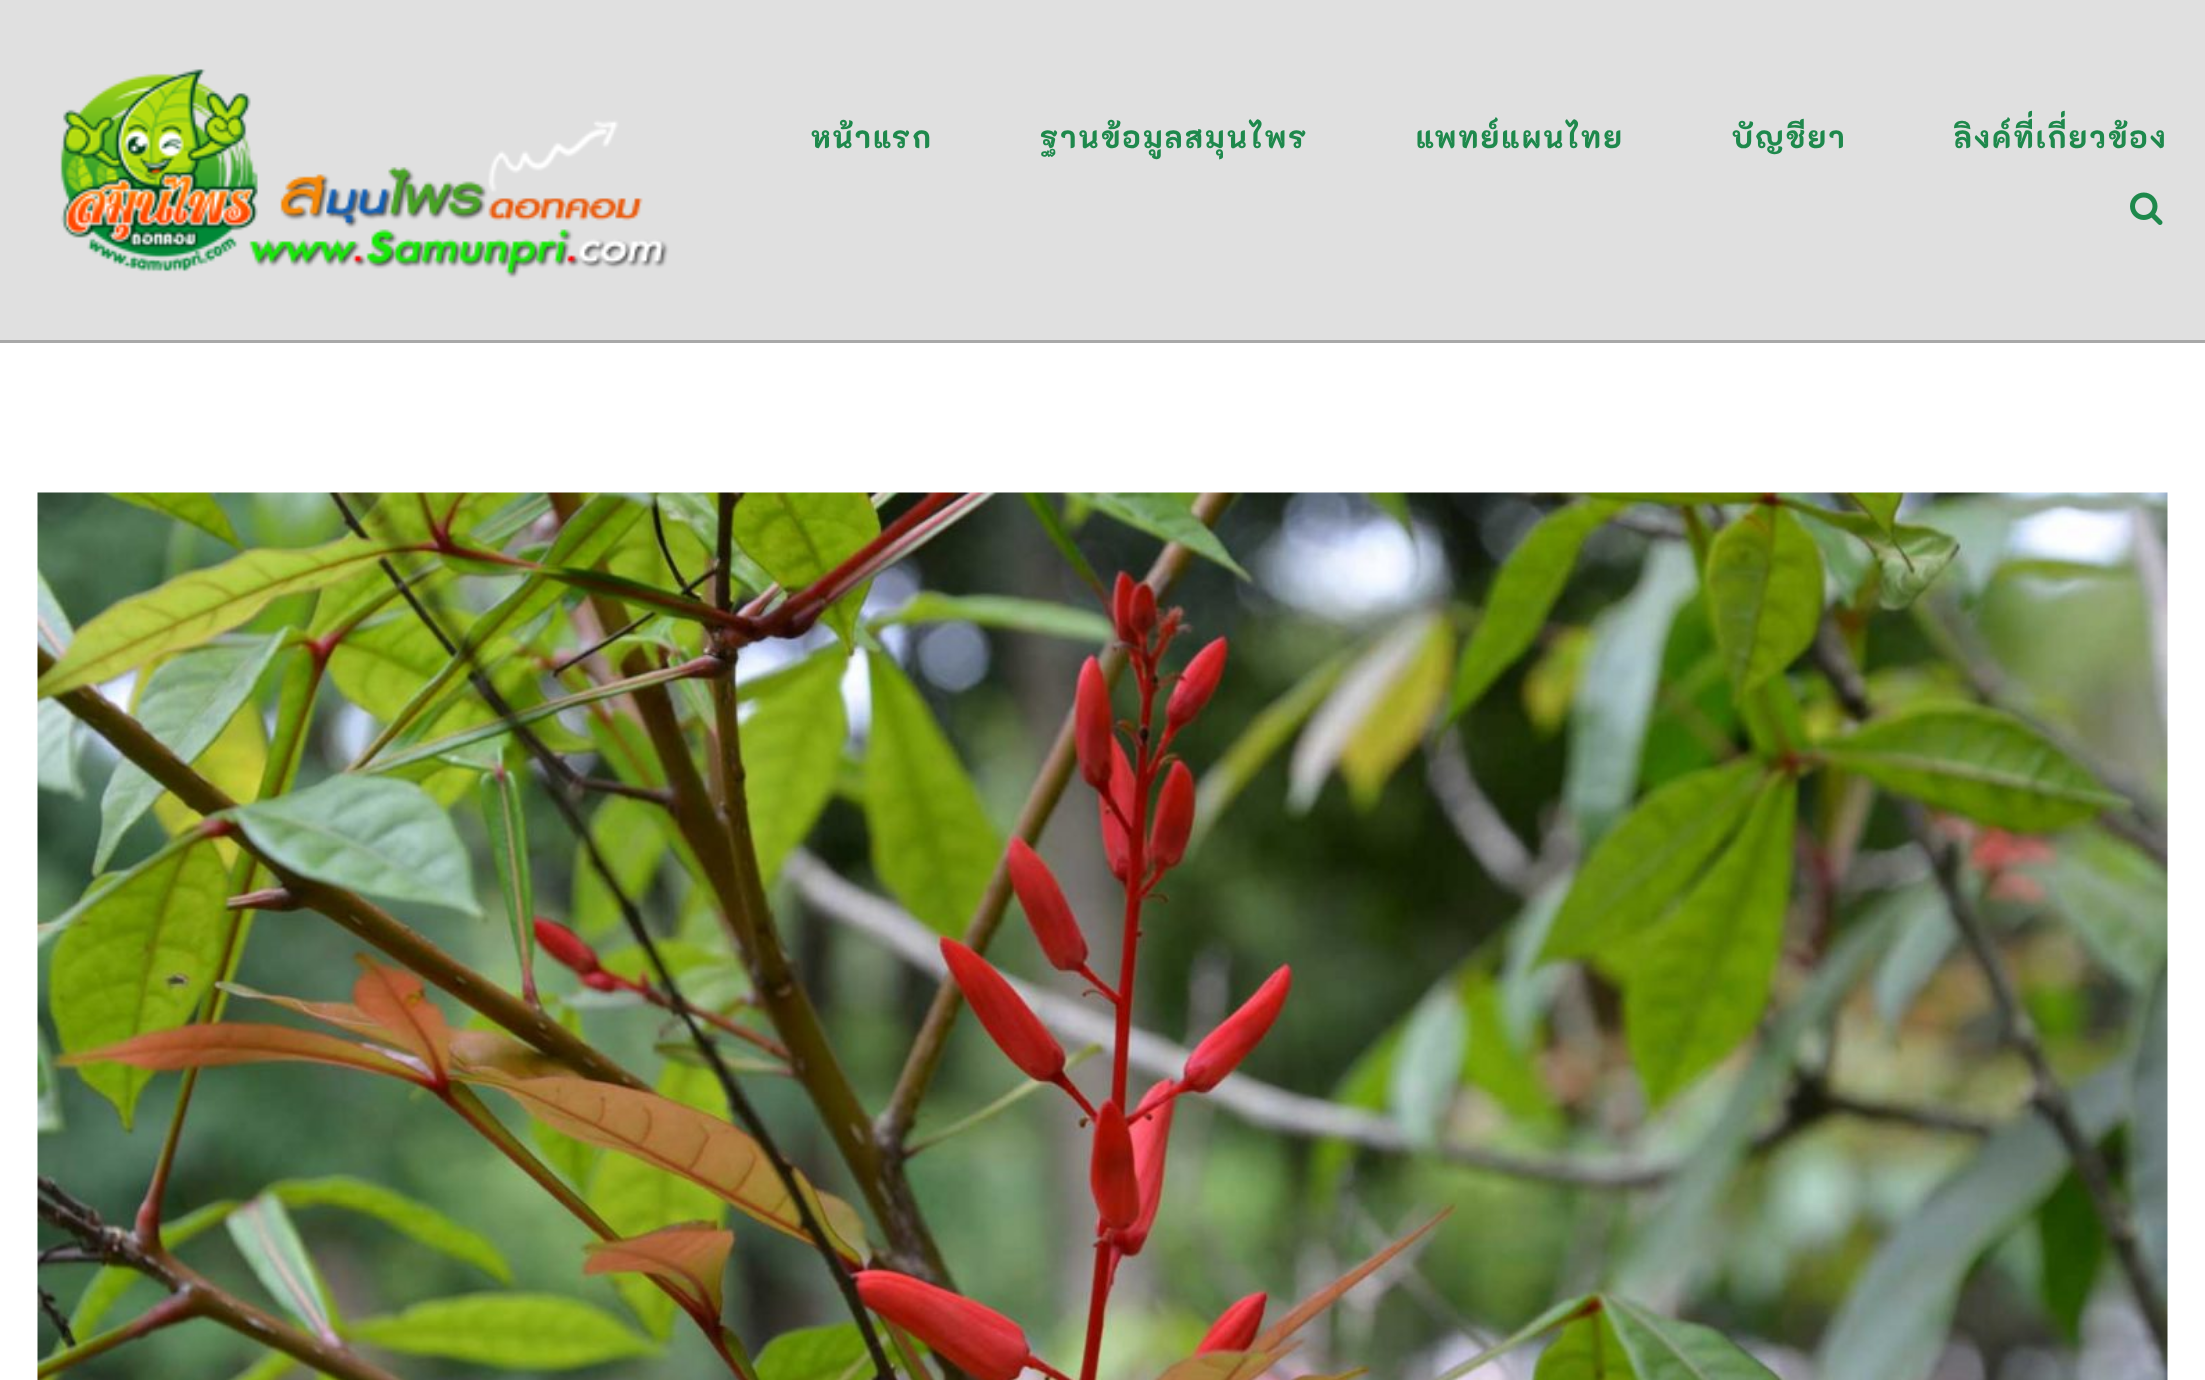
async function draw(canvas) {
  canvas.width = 2205
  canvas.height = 1380
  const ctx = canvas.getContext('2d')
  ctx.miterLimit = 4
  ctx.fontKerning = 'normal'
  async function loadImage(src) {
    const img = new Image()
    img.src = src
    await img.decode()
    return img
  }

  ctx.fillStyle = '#fff'
  ctx.fillRect(0, 0, 2205, 1380)
  ctx.fillStyle = '#e0e0e0'
  ctx.fillRect(0, 0, 2205, 340)
  ctx.fillStyle = '#a8a8a8'
  ctx.fillRect(0, 340, 2205, 3)
  ctx.drawImage(await loadImage('image0.png'), 60, 69, 609, 209)
  ctx.letterSpacing = '2.5px'
  ctx.font = '800 30px "K2D"'
  ctx.fillStyle = '#1e894c'
  ctx.fillText('หน้าแรก', 811, 148)
  ctx.fillText('ฐานข้อมูลสมุนไพร', 1040, 148)
  ctx.fillText('แพทย์แผนไทย', 1416, 148)
  ctx.fillText('บัญชียา', 1732, 148)
  ctx.fillText('ลิงค์ที่เกี่ยวข้อง', 1954, 148)
  ctx.drawImage(await loadImage('image1.png'), 2130, 192, 33, 33)
  ctx.drawImage(await loadImage('image2.png'), 37, 492, 2131, 888)
}

draw(document.querySelector('canvas'))
